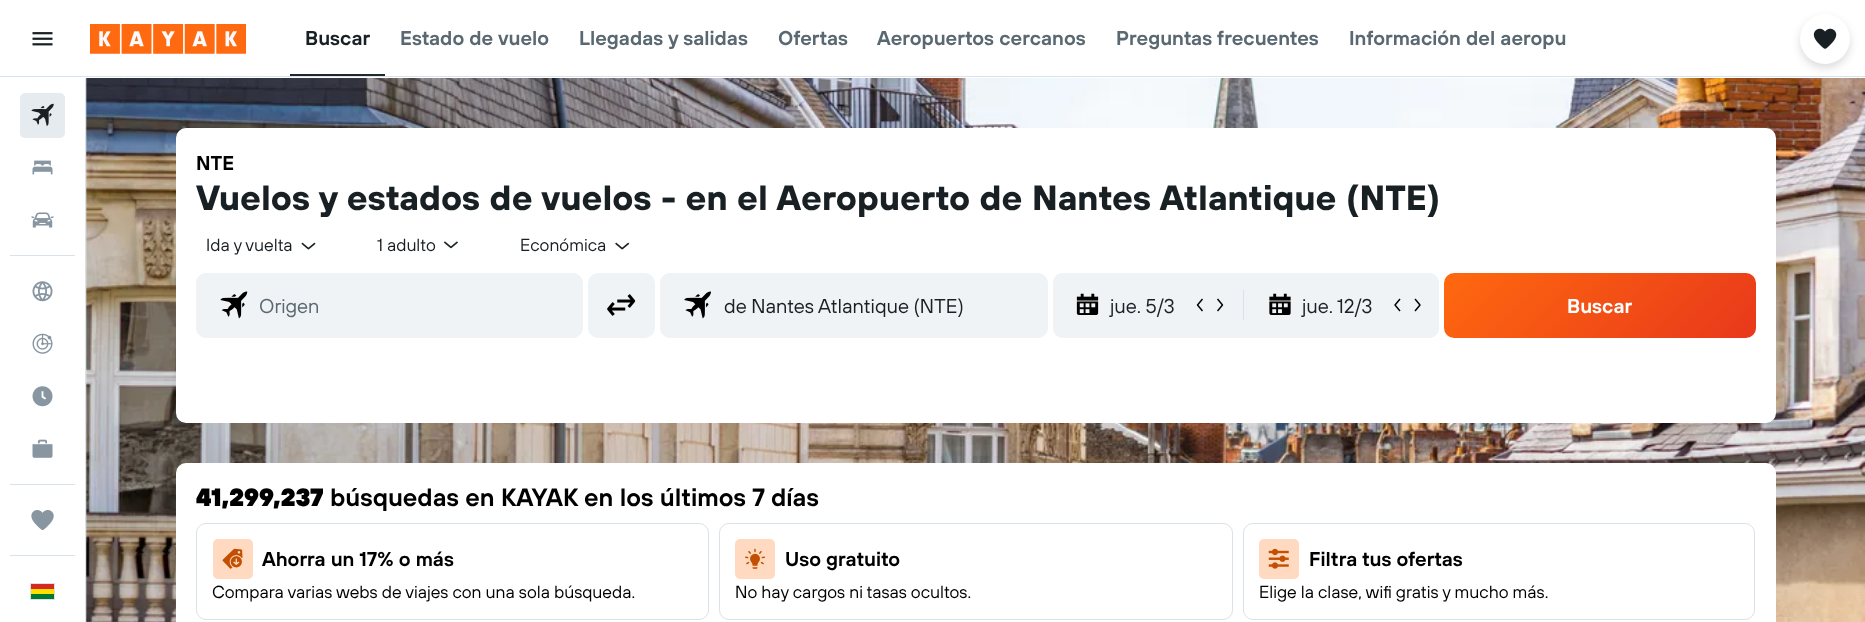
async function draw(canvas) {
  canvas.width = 1865
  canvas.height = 622
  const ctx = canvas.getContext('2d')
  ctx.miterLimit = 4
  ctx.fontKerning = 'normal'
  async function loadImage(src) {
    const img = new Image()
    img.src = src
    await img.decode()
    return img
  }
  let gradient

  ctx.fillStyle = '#fff'
  ctx.fillRect(0, 0, 1865, 622)
  ctx.fillStyle = '#d9e2e8'
  ctx.fillRect(0, 76, 1865, 1)
  ctx.drawImage(await loadImage('image0.png'), 32, 32, 21, 14)
  ctx.drawImage(await loadImage('image1.png'), 90, 24, 156, 30)
  ctx.fillStyle = '#fff'
  ctx.fillRect(290, 76, 1280, 1)
  ctx.fillStyle = '#d9e2e8'
  ctx.fillRect(290, 76, 1280, 1)
  ctx.fillStyle = '#1f282d'
  ctx.fillRect(290, 74, 95, 2)
  ctx.font = '600 20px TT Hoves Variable'
  ctx.fillStyle = '#192024'
  ctx.fillText('Buscar', 305, 45)
  ctx.fillStyle = '#5a6872'
  ctx.fillText('Estado de vuelo', 400, 45)
  ctx.fillText('Llegadas y salidas', 579, 45)
  ctx.fillText('Ofertas', 778, 45)
  ctx.fillText('Aeropuertos cercanos', 877, 45)
  ctx.fillText('Preguntas frecuentes', 1116, 45)
  ctx.fillText('Información del aeropu', 1349, 45)
  ctx.drawImage(await loadImage('image11.png'), 86, 78, 1779, 544)
  ctx.fillStyle = '#19202429'
  ctx.filter = 'blur(4px)'
  ctx.beginPath()
  ctx.roundRect(1800, 18, 50, 50, 25)
  ctx.fill()
  ctx.filter = 'none'
  ctx.fillStyle = '#fff'
  ctx.beginPath()
  ctx.arc(1825, 39, 25, 0, 2 * Math.PI)
  ctx.fill()
  ctx.drawImage(await loadImage('image2.png'), 1813, 28, 24, 21)
  ctx.fillStyle = '#d9e2e8'
  ctx.fillRect(85, 78, 1, 544)
  ctx.fillStyle = '#e6ebef'
  ctx.beginPath()
  ctx.roundRect(20, 93, 45, 45, 5)
  ctx.fill()
  ctx.drawImage(await loadImage('image3.png'), 31, 103, 23, 24)
  ctx.drawImage(await loadImage('image4.png'), 32, 160, 21, 15)
  ctx.drawImage(await loadImage('image5.png'), 31, 212, 23, 16)
  ctx.fillStyle = '#d9e2e8'
  ctx.fillRect(10, 255, 65, 1)
  ctx.drawImage(await loadImage('image6.png'), 32, 281, 21, 21)
  ctx.drawImage(await loadImage('image7.png'), 32, 333, 21, 21)
  ctx.drawImage(await loadImage('image8.png'), 32, 386, 21, 21)
  ctx.drawImage(await loadImage('image9.png'), 32, 439, 21, 19)
  ctx.fillRect(10, 484, 65, 1)
  ctx.drawImage(await loadImage('image10.png'), 31, 510, 23, 20)
  ctx.fillRect(10, 555, 65, 1)
  ctx.strokeStyle = '#d9e2e8'
  ctx.strokeRect(30.5, 583.5, 24, 16)
  ctx.fillStyle = '#007934'
  ctx.fillRect(31, 594, 23, 5)
  ctx.fillStyle = '#d52b1e'
  ctx.fillRect(31, 584, 23, 5)
  ctx.fillStyle = '#ffe000'
  ctx.fillRect(31, 589, 23, 5)
  ctx.fillStyle = '#fff'
  ctx.beginPath()
  ctx.roundRect(176, 128, 1600, 295, 10)
  ctx.fill()
  ctx.fillStyle = '#000'
  ctx.fillText('NTE', 196, 170)
  ctx.font = 'bold 35px TT Hoves Variable'
  ctx.fillStyle = '#192024'
  ctx.fillText('Vuelos y estados de vuelos - en el Aeropuerto de Nantes Atlantique (NTE)', 196, 210)
  ctx.font = '17.5px TT Hoves Variable'
  ctx.fillText('Ida y vuelta', 206, 251)
  ctx.drawImage(await loadImage('image12.png'), 301, 242, 15, 8)
  ctx.fillText('1 adulto', 377, 251)
  ctx.drawImage(await loadImage('image13.png'), 443, 241, 15, 8)
  ctx.fillText('Económica', 520, 251)
  ctx.drawImage(await loadImage('image14.png'), 615, 242, 15, 8)
  ctx.fillStyle = '#f0f3f5'
  ctx.beginPath()
  ctx.roundRect(196.5, 273.5, 386, 64, 9.5)
  ctx.fill()
  ctx.strokeStyle = '#f0f3f5'
  ctx.stroke()
  ctx.drawImage(await loadImage('image15.png'), 220, 291, 28, 28)
  ctx.font = '20px TT Hoves Variable'
  ctx.fillStyle = '#5a6872'
  ctx.fillText('Origen', 259, 313)
  ctx.fillStyle = '#f0f3f5'
  ctx.beginPath()
  ctx.roundRect(588, 273, 67, 65, 10)
  ctx.fill()
  ctx.drawImage(await loadImage('image16.png'), 607, 294, 29, 22)
  ctx.beginPath()
  ctx.roundRect(660.5, 273.5, 387, 64, 9.5)
  ctx.fill()
  ctx.stroke()
  ctx.drawImage(await loadImage('image17.png'), 684, 291, 27, 28)
  ctx.fillStyle = '#192024'
  ctx.fillText('de Nantes Atlantique (NTE)', 724, 313)
  ctx.fillStyle = '#f0f3f5'
  ctx.beginPath()
  ctx.roundRect(1053, 273, 386, 65, 10)
  ctx.fill()
  ctx.beginPath()
  ctx.roundRect(1053, 273, 188, 65, 10)
  ctx.fill()
  ctx.drawImage(await loadImage('image18.png'), 1076, 293, 23, 22)
  ctx.fillStyle = '#192024'
  ctx.fillText('jue. 5/3', 1110, 313)
  ctx.drawImage(await loadImage('image19.png'), 1196, 298, 7, 14)
  ctx.drawImage(await loadImage('image20.png'), 1217, 298, 7, 14)
  ctx.fillStyle = '#d9e2e8'
  ctx.fillRect(1243, 290, 1, 30)
  ctx.fillStyle = '#f0f3f5'
  ctx.beginPath()
  ctx.roundRect(1245, 273, 194, 65, 10)
  ctx.fill()
  ctx.drawImage(await loadImage('image21.png'), 1269, 293, 22, 22)
  ctx.fillStyle = '#192024'
  ctx.fillText('jue. 12/3', 1302, 313)
  ctx.drawImage(await loadImage('image22.png'), 1394, 298, 7, 14)
  ctx.drawImage(await loadImage('image23.png'), 1414, 298, 7, 14)
  gradient = ctx.createLinearGradient(1506, 211, 1694, 399)
  gradient.addColorStop(0, '#ff690f')
  gradient.addColorStop(1, '#e8381b')
  ctx.fillStyle = gradient
  ctx.beginPath()
  ctx.roundRect(1444, 273, 312, 65, 10)
  ctx.fill()
  ctx.font = '600 20px TT Hoves Variable'
  ctx.fillStyle = '#fff'
  ctx.fillText('Buscar', 1567, 313)
  ctx.beginPath()
  ctx.roundRect(176, 463, 1600, 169, 10)
  ctx.fill()
  ctx.font = '900 25px TT Hoves Variable'
  ctx.fillStyle = '#000'
  ctx.fillText('41,299,237', 196, 506)
  ctx.font = '600 25px TT Hoves Variable'
  ctx.fillText('búsquedas en KAYAK en los últimos 7 días', 330, 506)
  ctx.beginPath()
  ctx.roundRect(196.5, 523.5, 512, 96, 9.5)
  ctx.strokeStyle = '#d9e2e8'
  ctx.stroke()
  ctx.fillStyle = '#ffdac1'
  ctx.beginPath()
  ctx.roundRect(213, 539, 40, 40, 5)
  ctx.fill()
  ctx.drawImage(await loadImage('image24.png'), 222, 548, 21, 21)
  ctx.font = '600 20px TT Hoves Variable'
  ctx.fillStyle = '#000'
  ctx.fillText('Ahorra un 17% o más', 262, 566)
  ctx.font = '17.5px TT Hoves Variable'
  ctx.fillText('Compara varias webs de viajes con una sola búsqueda.', 212, 598)
  ctx.beginPath()
  ctx.roundRect(719.5, 523.5, 513, 96, 9.5)
  ctx.stroke()
  ctx.fillStyle = '#ffdac1'
  ctx.beginPath()
  ctx.roundRect(735, 539, 40, 40, 5)
  ctx.fill()
  ctx.drawImage(await loadImage('image25.png'), 745, 548, 20, 21)
  ctx.font = '600 20px TT Hoves Variable'
  ctx.fillStyle = '#000'
  ctx.fillText('Uso gratuito', 785, 566)
  ctx.font = '17.5px TT Hoves Variable'
  ctx.fillText('No hay cargos ni tasas ocultos.', 735, 598)
  ctx.beginPath()
  ctx.roundRect(1243.5, 523.5, 511, 96, 9.5)
  ctx.stroke()
  ctx.fillStyle = '#ffdac1'
  ctx.beginPath()
  ctx.roundRect(1259, 539, 40, 40, 5)
  ctx.fill()
  ctx.drawImage(await loadImage('image26.png'), 1268, 548, 21, 21)
  ctx.font = '600 20px TT Hoves Variable'
  ctx.fillStyle = '#000'
  ctx.fillText('Filtra tus ofertas', 1309, 566)
  ctx.font = '17.5px TT Hoves Variable'
  ctx.fillText('Elige la clase, wifi gratis y mucho más.', 1259, 598)
}

draw(document.querySelector('canvas'))
